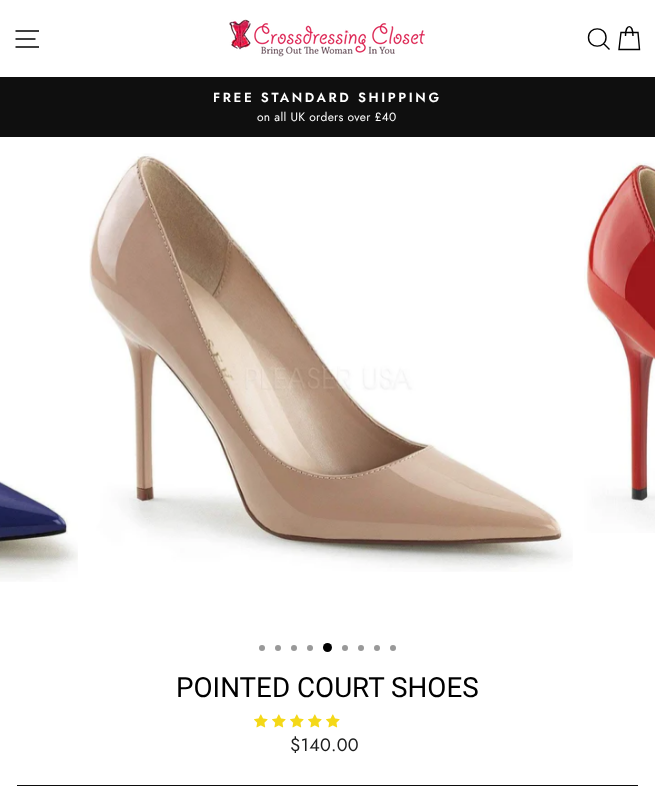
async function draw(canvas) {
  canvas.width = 655
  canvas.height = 801
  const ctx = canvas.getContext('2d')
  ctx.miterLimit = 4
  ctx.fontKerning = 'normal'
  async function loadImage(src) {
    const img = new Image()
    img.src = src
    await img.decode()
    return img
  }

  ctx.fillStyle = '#fff'
  ctx.fillRect(0, 0, 655, 801)
  ctx.beginPath()
  ctx.moveTo(15.5, 31)
  ctx.lineTo(39, 31)
  ctx.moveTo(15.5, 39)
  ctx.lineTo(35.5, 39)
  ctx.moveTo(15.5, 47)
  ctx.lineTo(39, 47)
  ctx.strokeStyle = '#000'
  ctx.lineWidth = 1.4
  ctx.stroke()
  ctx.drawImage(await loadImage('image0.png'), 229, 19, 196, 38)
  ctx.beginPath()
  ctx.moveTo(606, 37.5)
  ctx.bezierCurveTo(606, 49, 588.5, 49, 588.5, 37.5)
  ctx.bezierCurveTo(588.5, 26, 606, 26, 606, 37.5)
  ctx.closePath()
  ctx.moveTo(609.5, 49.5)
  ctx.lineTo(603.5, 43.5)
  ctx.moveTo(625.5, 36)
  ctx.bezierCurveTo(625.5, 23.5, 633, 23.5, 633, 36)
  ctx.moveTo(621, 32.5)
  ctx.lineTo(638, 32.5)
  ctx.lineTo(639.5, 49.5)
  ctx.lineTo(619, 49.5)
  ctx.closePath()
  ctx.stroke()
  ctx.fillStyle = '#0f0f0f'
  ctx.fillRect(0, 77, 655, 60)
  ctx.letterSpacing = '2.6px'
  ctx.font = '600 13.25px Jost'
  ctx.fillStyle = '#fff'
  ctx.fillText('FREE STANDARD SHIPPING', 213, 102)
  ctx.letterSpacing = '0.3px'
  ctx.font = '12px Jost'
  ctx.fillText('on all UK orders over £40', 257, 121)
  ctx.drawImage(await loadImage('image1.png'), 0, 480, 78, 102)
  ctx.drawImage(await loadImage('image2.png'), 89, 153, 484, 419)
  ctx.drawImage(await loadImage('image3.png'), 584, 161, 71, 372)
  ctx.fillStyle = '#999'
  ctx.beginPath()
  ctx.arc(262, 648, 3, 0, 2 * Math.PI)
  ctx.fill()
  ctx.beginPath()
  ctx.arc(278, 648, 3, 0, 2 * Math.PI)
  ctx.fill()
  ctx.beginPath()
  ctx.arc(294, 648, 3, 0, 2 * Math.PI)
  ctx.fill()
  ctx.beginPath()
  ctx.arc(310, 648, 3, 0, 2 * Math.PI)
  ctx.fill()
  ctx.fillStyle = '#000'
  ctx.beginPath()
  ctx.arc(327.5, 647.5, 4.5, 0, 2 * Math.PI)
  ctx.fill()
  ctx.fillStyle = '#999'
  ctx.beginPath()
  ctx.arc(345, 648, 3, 0, 2 * Math.PI)
  ctx.fill()
  ctx.beginPath()
  ctx.arc(361, 648, 3, 0, 2 * Math.PI)
  ctx.fill()
  ctx.beginPath()
  ctx.arc(377, 648, 3, 0, 2 * Math.PI)
  ctx.fill()
  ctx.beginPath()
  ctx.arc(393, 648, 3, 0, 2 * Math.PI)
  ctx.fill()
  ctx.letterSpacing = '0px'
  ctx.font = '27.75px Roboto'
  ctx.fillStyle = '#000'
  ctx.fillText('POINTED COURT SHOES', 176, 697)
  ctx.drawImage(await loadImage('image4.png'), 254, 714, 14, 14)
  ctx.drawImage(await loadImage('image4.png'), 272, 714, 14, 14)
  ctx.drawImage(await loadImage('image4.png'), 290, 714, 14, 14)
  ctx.drawImage(await loadImage('image4.png'), 308, 714, 14, 14)
  ctx.drawImage(await loadImage('image4.png'), 326, 714, 14, 14)
  ctx.letterSpacing = '0.3px'
  ctx.font = '18px Jost'
  ctx.fillStyle = '#1c1d1d'
  ctx.fillText('$140.00', 290, 751)
  ctx.fillStyle = '#0c0c0c'
  ctx.fillRect(17, 785, 621, 1)
}

draw(document.querySelector('canvas'))
